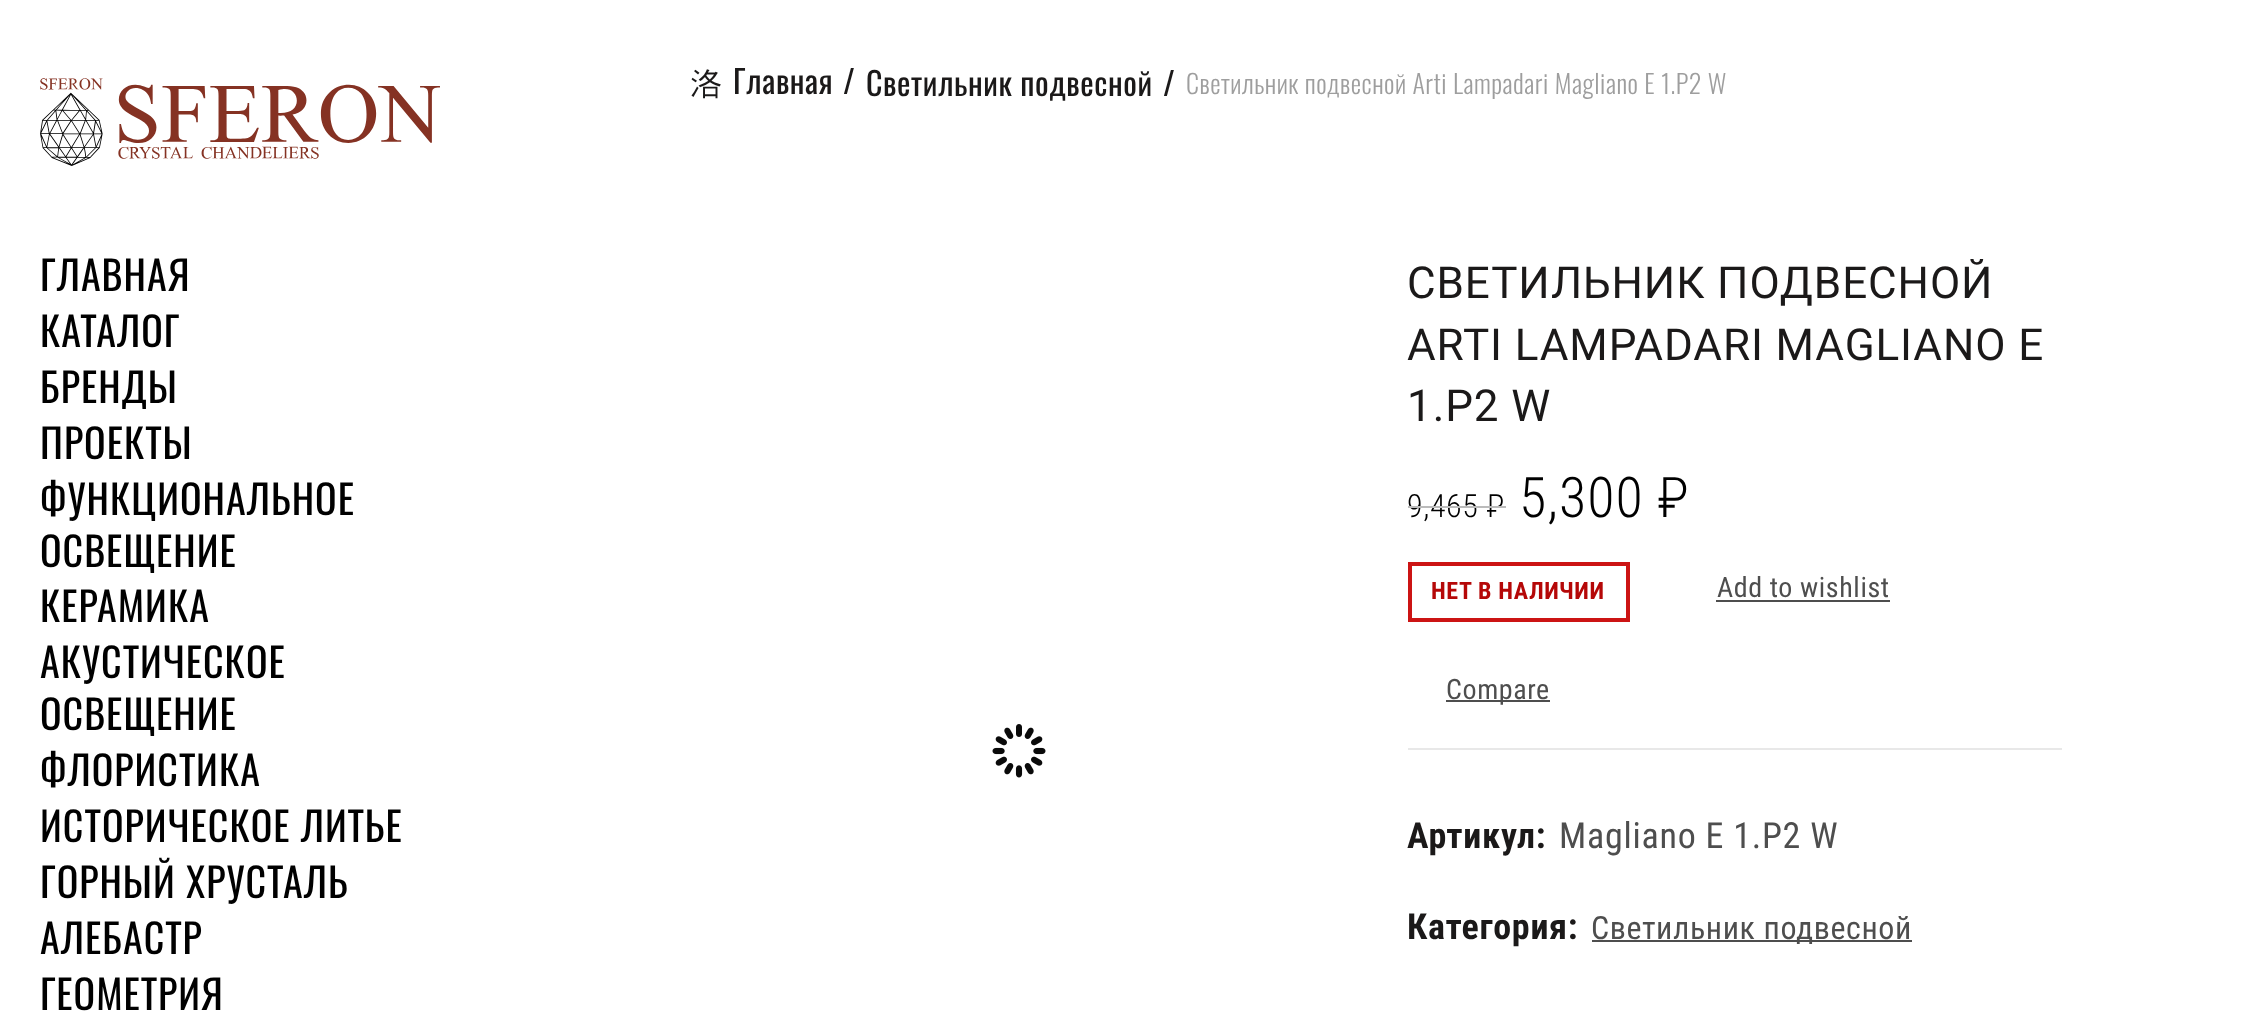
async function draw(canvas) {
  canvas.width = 2254
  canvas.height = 1014
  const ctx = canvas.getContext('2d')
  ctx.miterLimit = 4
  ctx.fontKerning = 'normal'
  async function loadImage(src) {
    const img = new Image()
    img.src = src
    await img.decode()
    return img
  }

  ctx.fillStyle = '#fff'
  ctx.fillRect(0, 0, 2254, 1014)
  ctx.drawImage(await loadImage('image0.png'), 40, 78, 400, 88)
  ctx.letterSpacing = '1px'
  ctx.font = '40px Oswald'
  ctx.fillStyle = '#000'
  ctx.fillText('ГЛАВНАЯ', 40, 291)
  ctx.fillText('КАТАЛОГ', 40, 347)
  ctx.fillText('БРЕНДЫ', 40, 403)
  ctx.fillText('ПРОЕКТЫ', 40, 459)
  ctx.fillText('ФУНКЦИОНАЛЬНОЕ', 40, 515)
  ctx.fillText('ОСВЕЩЕНИЕ', 40, 567)
  ctx.fillText('КЕРАМИКА', 40, 622)
  ctx.fillText('АКУСТИЧЕСКОЕ', 40, 678)
  ctx.fillText('ОСВЕЩЕНИЕ', 40, 730)
  ctx.fillText('ФЛОРИСТИКА', 40, 786)
  ctx.fillText('ИСТОРИЧЕСКОЕ ЛИТЬЕ', 40, 842)
  ctx.fillText('ГОРНЫЙ ХРУСТАЛЬ', 40, 898)
  ctx.fillText('АЛЕБАСТР', 40, 954)
  ctx.fillText('ГЕОМЕТРИЯ', 40, 1010)
  ctx.letterSpacing = '0.6px'
  ctx.font = '500 32px WenQuanYi Zen Hei'
  ctx.fillStyle = '#1b1919'
  ctx.fillText('洛', 690, 94)
  ctx.font = '32px Oswald'
  ctx.fillText('Главная', 733, 94)
  ctx.fillText('/', 843, 94)
  ctx.fillText('Светильник подвесной', 866, 96)
  ctx.fillText('/', 1163, 96)
  ctx.letterSpacing = '0.52px'
  ctx.font = '300 26px Oswald'
  ctx.fillStyle = '#9e9e9e'
  ctx.fillText('Светильник подвесной Arti Lampadari Magliano E 1.P2 W', 1186, 94)
  ctx.drawImage(await loadImage('image1.png'), 992, 724, 54, 54)
  ctx.letterSpacing = '0.9px'
  ctx.font = '44px Roboto'
  ctx.fillStyle = '#1b1919'
  ctx.fillText('СВЕТИЛЬНИК ПОДВЕСНОЙ', 1407, 298)
  ctx.fillText('ARTI LAMPADARI MAGLIANO E', 1407, 360)
  ctx.fillText('1.P2 W', 1407, 421)
  ctx.letterSpacing = '0.6px'
  ctx.font = '300 32px Roboto Condensed'
  ctx.fillStyle = '#000'
  ctx.fillText('9,465 ₽', 1407, 517)
  ctx.fillStyle = '#bbb'
  ctx.fillRect(1408, 506, 98, 2)
  ctx.letterSpacing = '1px'
  ctx.font = '300 56px Roboto Condensed'
  ctx.fillStyle = '#000'
  ctx.fillText('5,300 ₽', 1519, 517)
  ctx.strokeStyle = '#cc1414'
  ctx.lineWidth = 4
  ctx.strokeRect(1410, 564, 218, 56)
  ctx.letterSpacing = '0.6px'
  ctx.font = 'bold 24px Roboto Condensed'
  ctx.fillStyle = '#b50808'
  ctx.fillText('НЕТ В НАЛИЧИИ', 1431, 599)
  ctx.font = '28px Roboto Condensed'
  ctx.fillStyle = '#4e4e4e'
  ctx.fillText('Add to wishlist', 1717, 597)
  ctx.fillRect(1716, 600, 174, 2)
  ctx.fillRect(1446, 700, 104, 2)
  ctx.fillText('Compare', 1446, 699)
  ctx.fillStyle = '#e8e8e8'
  ctx.fillRect(1408, 748, 654, 2)
  ctx.letterSpacing = '0.75px'
  ctx.font = 'bold 36px Roboto Condensed'
  ctx.fillStyle = '#1b1919'
  ctx.fillText('Артикул:', 1407, 848)
  ctx.font = '36px Roboto Condensed'
  ctx.fillStyle = '#4e4e4e'
  ctx.fillText('Magliano E 1.P2 W', 1559, 848)
  ctx.font = 'bold 36px Roboto Condensed'
  ctx.fillStyle = '#1b1919'
  ctx.fillText('Категория:', 1407, 939)
  ctx.fillStyle = '#4e4e4e'
  ctx.fillRect(1592, 940, 320, 2)
  ctx.letterSpacing = '0.6px'
  ctx.font = '32px Roboto Condensed'
  ctx.fillText('Светильник подвесной', 1591, 939)
}

draw(document.querySelector('canvas'))
